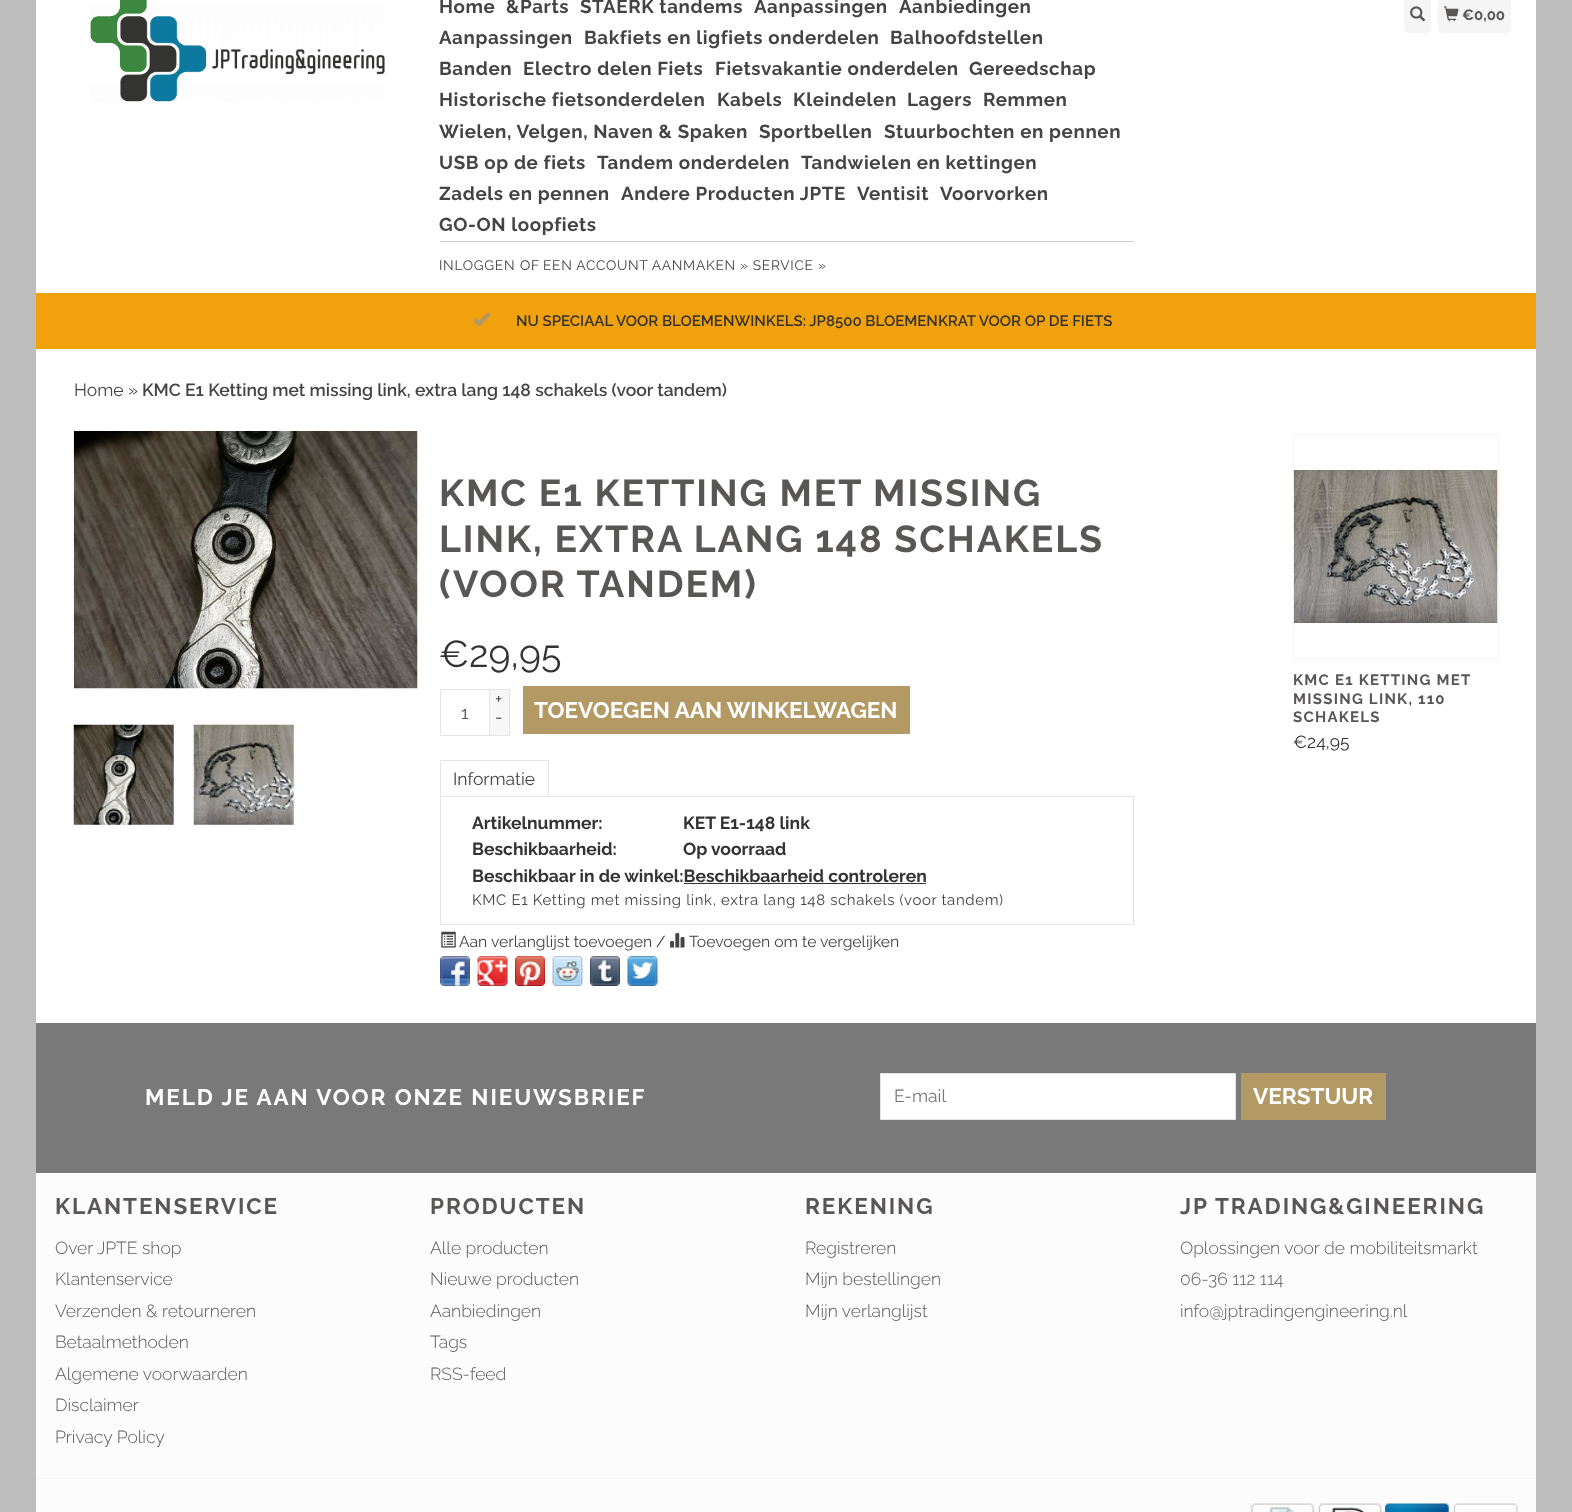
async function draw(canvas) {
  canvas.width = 1572
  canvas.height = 1512
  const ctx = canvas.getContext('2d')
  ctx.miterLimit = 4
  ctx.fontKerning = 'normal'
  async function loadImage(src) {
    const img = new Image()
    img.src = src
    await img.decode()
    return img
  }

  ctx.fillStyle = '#bdbdbd'
  ctx.fillRect(0, 0, 1572, 1512)
  ctx.fillStyle = '#fff'
  ctx.fillRect(36, 0, 1500, 293)
  ctx.fillStyle = '#f7f7f7'
  ctx.fillRect(36, 291, 1500, 1)
  ctx.drawImage(await loadImage('image0.png'), 90, 0, 295, 102)
  ctx.fillStyle = '#ccc'
  ctx.fillRect(440, 241, 694, 1)
  ctx.letterSpacing = '0.62px'
  ctx.font = 'bold 18.75px Raleway'
  ctx.fillStyle = '#444'
  ctx.fillText('Home', 439, 13)
  ctx.fillText('&Parts', 506, 13)
  ctx.fillText('STAERK tandems', 580, 13)
  ctx.fillText('Aanpassingen', 754, 13)
  ctx.fillText('Aanbiedingen', 899, 13)
  ctx.fillText('Aanpassingen', 439, 44)
  ctx.fillText('Bakfiets en ligfiets onderdelen', 584, 44)
  ctx.fillText('Balhoofdstellen', 890, 44)
  ctx.fillText('Banden', 439, 75)
  ctx.fillText('Electro delen Fiets', 523, 75)
  ctx.fillText('Fietsvakantie onderdelen', 715, 75)
  ctx.fillText('Gereedschap', 969, 75)
  ctx.fillText('Historische fietsonderdelen', 439, 106)
  ctx.fillText('Kabels', 717, 106)
  ctx.fillText('Kleindelen', 793, 106)
  ctx.fillText('Lagers', 907, 106)
  ctx.fillText('Remmen', 983, 106)
  ctx.fillText('Wielen, Velgen, Naven & Spaken', 439, 138)
  ctx.fillText('Sportbellen', 759, 138)
  ctx.fillText('Stuurbochten en pennen', 884, 138)
  ctx.fillText('USB op de fiets', 439, 169)
  ctx.fillText('Tandem onderdelen', 597, 169)
  ctx.fillText('Tandwielen en kettingen', 801, 169)
  ctx.fillText('Zadels en pennen', 439, 200)
  ctx.fillText('Andere Producten JPTE', 621, 200)
  ctx.fillText('Ventisit', 857, 200)
  ctx.fillText('Voorvorken', 940, 200)
  ctx.fillText('GO-ON loopfiets', 439, 231)
  ctx.letterSpacing = '0.7px'
  ctx.font = '13.75px Raleway'
  ctx.fillText('INLOGGEN', 439, 270)
  ctx.fillStyle = '#333'
  ctx.fillText('OF', 520, 270)
  ctx.fillStyle = '#444'
  ctx.fillText('EEN ACCOUNT AANMAKEN » SERVICE »', 543, 270)
  ctx.fillStyle = '#f5f5f5'
  ctx.beginPath()
  ctx.roundRect(1404, -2, 27, 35, 5)
  ctx.fill()
  ctx.drawImage(await loadImage('image1.png'), 1410, 6, 16, 16)
  ctx.beginPath()
  ctx.roundRect(1438, -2, 73, 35, 5)
  ctx.fill()
  ctx.drawImage(await loadImage('image2.png'), 1443, 6, 16, 16)
  ctx.letterSpacing = '0px'
  ctx.font = 'bold 15px Raleway'
  ctx.fillStyle = '#595656'
  ctx.fillText('€0,00', 1462, 20)
  ctx.fillStyle = '#f0a10c'
  ctx.fillRect(36, 293, 1500, 56)
  ctx.fillStyle = '#f7f7f7'
  ctx.fillRect(36, 349, 1500, 1)
  ctx.drawImage(await loadImage('image3.png'), 473, 312, 18, 15)
  ctx.font = '600 15px Raleway'
  ctx.fillStyle = '#333'
  ctx.fillText('NU SPECIAAL VOOR BLOEMENWINKELS: JP8500 BLOEMENKRAT VOOR OP DE FIETS', 516, 326)
  ctx.fillStyle = '#fff'
  ctx.fillRect(36, 350, 1500, 673)
  ctx.font = '17.5px Raleway'
  ctx.fillStyle = '#444'
  ctx.fillText('Home', 74, 396)
  ctx.fillStyle = '#333'
  ctx.fillText('»', 128, 396)
  ctx.font = '600 17.5px Raleway'
  ctx.fillStyle = '#444'
  ctx.fillText('KMC E1 Ketting met missing link, extra lang 148 schakels (voor tandem)', 142, 396)
  ctx.drawImage(await loadImage('image4.png'), 73, 431, 345, 258)
  ctx.drawImage(await loadImage('image5.png'), 73, 724, 101, 101)
  ctx.drawImage(await loadImage('image6.png'), 193, 724, 101, 101)
  ctx.letterSpacing = '1.9px'
  ctx.font = 'bold 37.5px Raleway'
  ctx.fillStyle = '#595656'
  ctx.fillText('KMC E1 KETTING MET MISSING', 439, 506)
  ctx.fillText('LINK, EXTRA LANG 148 SCHAKELS', 439, 552)
  ctx.fillText('(VOOR TANDEM)', 439, 597)
  ctx.letterSpacing = '0px'
  ctx.font = '37.5px Raleway'
  ctx.fillStyle = '#333'
  ctx.fillText('€29,95', 439, 667)
  ctx.strokeStyle = '#e5e5e5'
  ctx.strokeRect(440.5, 689.5, 49, 46)
  ctx.font = '17.5px Raleway'
  ctx.fillStyle = '#515050'
  ctx.fillText('1', 461, 719)
  ctx.fillStyle = '#f7f7f7'
  ctx.fillRect(490, 690, 19, 45)
  ctx.fillStyle = '#e5e5e5'
  ctx.fillRect(490, 689, 20, 1)
  ctx.fillRect(509, 689, 1, 47)
  ctx.fillRect(490, 735, 20, 1)
  ctx.fillStyle = '#444'
  ctx.fillText('+', 495, 705)
  ctx.fillText('-', 495, 723)
  ctx.fillStyle = '#b39964'
  ctx.fillRect(523, 686, 387, 48)
  ctx.font = 'bold 22.5px Raleway'
  ctx.fillStyle = '#fff'
  ctx.fillText('TOEVOEGEN AAN WINKELWAGEN', 534, 718)
  ctx.fillStyle = '#e5e5e5'
  ctx.fillRect(440, 760, 109, 1)
  ctx.fillRect(548, 760, 1, 38)
  ctx.fillRect(440, 760, 1, 38)
  ctx.font = '17.5px Raleway'
  ctx.fillStyle = '#444'
  ctx.fillText('Informatie', 453, 785)
  ctx.fillStyle = '#fff'
  ctx.fillRect(548, 797, 1, 1)
  ctx.strokeRect(440.5, 796.5, 693, 128)
  ctx.font = 'bold 17.5px Raleway'
  ctx.fillStyle = '#333'
  ctx.fillText('Artikelnummer:', 472, 829)
  ctx.fillText('KET E1-148 link', 683, 829)
  ctx.fillText('Beschikbaarheid:', 472, 855)
  ctx.fillText('Op voorraad', 683, 855)
  ctx.fillText('Beschikbaar in de winkel:Beschikbaarheid controleren', 472, 882)
  ctx.fillRect(684, 883, 242, 1)
  ctx.letterSpacing = '0.62px'
  ctx.font = '15px Raleway'
  ctx.fillStyle = '#444'
  ctx.fillText('KMC E1 Ketting met missing link, extra lang 148 schakels (voor tandem)', 472, 905)
  ctx.drawImage(await loadImage('image7.png'), 441, 931, 15, 17)
  ctx.letterSpacing = '0px'
  ctx.font = '15.75px Raleway'
  ctx.fillText('Aan verlanglijst toevoegen', 459, 947)
  ctx.fillStyle = '#333'
  ctx.fillText('/', 656, 947)
  ctx.drawImage(await loadImage('image8.png'), 670, 933, 15, 15)
  ctx.fillStyle = '#444'
  ctx.fillText('Toevoegen om te vergelijken', 689, 947)
  ctx.drawImage(await loadImage('image9.png'), 440, 956, 30, 30)
  ctx.drawImage(await loadImage('image10.png'), 477, 956, 31, 30)
  ctx.drawImage(await loadImage('image11.png'), 515, 956, 30, 30)
  ctx.drawImage(await loadImage('image12.png'), 552, 956, 31, 30)
  ctx.drawImage(await loadImage('image13.png'), 590, 956, 30, 30)
  ctx.drawImage(await loadImage('image14.png'), 627, 956, 31, 30)
  ctx.strokeStyle = '#f7f7f7'
  ctx.strokeRect(1293.5, 434.5, 205, 224)
  ctx.drawImage(await loadImage('image15.png'), 1293, 465, 205, 160)
  ctx.letterSpacing = '1.25px'
  ctx.font = 'bold 15px Raleway'
  ctx.fillStyle = '#595656'
  ctx.fillText('KMC E1 KETTING MET', 1293, 685)
  ctx.fillText('MISSING LINK, 110', 1293, 704)
  ctx.fillText('SCHAKELS', 1293, 722)
  ctx.letterSpacing = '0px'
  ctx.font = '17.5px Raleway'
  ctx.fillStyle = '#333'
  ctx.fillText('€24,95', 1293, 748)
  ctx.fillStyle = '#797979'
  ctx.fillRect(36, 1023, 1500, 150)
  ctx.letterSpacing = '1.9px'
  ctx.font = 'bold 22.5px Raleway'
  ctx.fillStyle = '#fff'
  ctx.fillText('MELD JE AAN VOOR ONZE NIEUWSBRIEF', 145, 1105)
  ctx.beginPath()
  ctx.rect(880.5, 1073.5, 355, 46)
  ctx.fill()
  ctx.strokeStyle = '#e5e5e5'
  ctx.stroke()
  ctx.letterSpacing = '0px'
  ctx.font = '17.5px Raleway'
  ctx.fillStyle = '#757575'
  ctx.fillText('E-mail', 894, 1102)
  ctx.fillStyle = '#b39964'
  ctx.fillRect(1241, 1073, 145, 47)
  ctx.font = 'bold 22.5px Raleway'
  ctx.fillStyle = '#fff'
  ctx.fillText('VERSTUUR', 1253, 1104)
  ctx.fillStyle = '#fcfcfc'
  ctx.fillRect(36, 1173, 1500, 339)
  ctx.letterSpacing = '1.9px'
  ctx.fillStyle = '#595656'
  ctx.fillText('KLANTENSERVICE', 55, 1214)
  ctx.letterSpacing = '0px'
  ctx.font = '300 17.5px Raleway'
  ctx.fillText('Over JPTE shop', 55, 1254)
  ctx.fillText('Klantenservice', 55, 1285)
  ctx.fillText('Verzenden & retourneren', 55, 1317)
  ctx.fillText('Betaalmethoden', 55, 1348)
  ctx.fillText('Algemene voorwaarden', 55, 1380)
  ctx.fillText('Disclaimer', 55, 1411)
  ctx.fillText('Privacy Policy', 55, 1443)
  ctx.letterSpacing = '1.9px'
  ctx.font = 'bold 22.5px Raleway'
  ctx.fillText('PRODUCTEN', 430, 1214)
  ctx.letterSpacing = '0px'
  ctx.font = '300 17.5px Raleway'
  ctx.fillText('Alle producten', 430, 1254)
  ctx.fillText('Nieuwe producten', 430, 1285)
  ctx.fillText('Aanbiedingen', 430, 1317)
  ctx.fillText('Tags', 430, 1348)
  ctx.fillText('RSS-feed', 430, 1380)
  ctx.letterSpacing = '1.9px'
  ctx.font = 'bold 22.5px Raleway'
  ctx.fillText('REKENING', 805, 1214)
  ctx.letterSpacing = '0px'
  ctx.font = '300 17.5px Raleway'
  ctx.fillText('Registreren', 805, 1254)
  ctx.fillText('Mijn bestellingen', 805, 1285)
  ctx.fillText('Mijn verlanglijst', 805, 1317)
  ctx.letterSpacing = '1.9px'
  ctx.font = 'bold 22.5px Raleway'
  ctx.fillText('JP TRADING&GINEERING', 1180, 1214)
  ctx.letterSpacing = '0px'
  ctx.font = '300 17.5px Raleway'
  ctx.fillText('Oplossingen voor de mobiliteitsmarkt', 1180, 1254)
  ctx.fillText('06-36 112 114', 1180, 1285)
  ctx.fillText('info@jptradingengineering.nl', 1180, 1317)
  ctx.fillStyle = '#f7f7f7'
  ctx.fillRect(36, 1478, 1500, 1)
  ctx.drawImage(await loadImage('image16.png'), 1251, 1503, 63, 9)
  ctx.drawImage(await loadImage('image17.png'), 1318, 1503, 64, 9)
  ctx.drawImage(await loadImage('image18.png'), 1385, 1503, 64, 9)
  ctx.drawImage(await loadImage('image19.png'), 1453, 1503, 65, 9)
}

draw(document.querySelector('canvas'))
